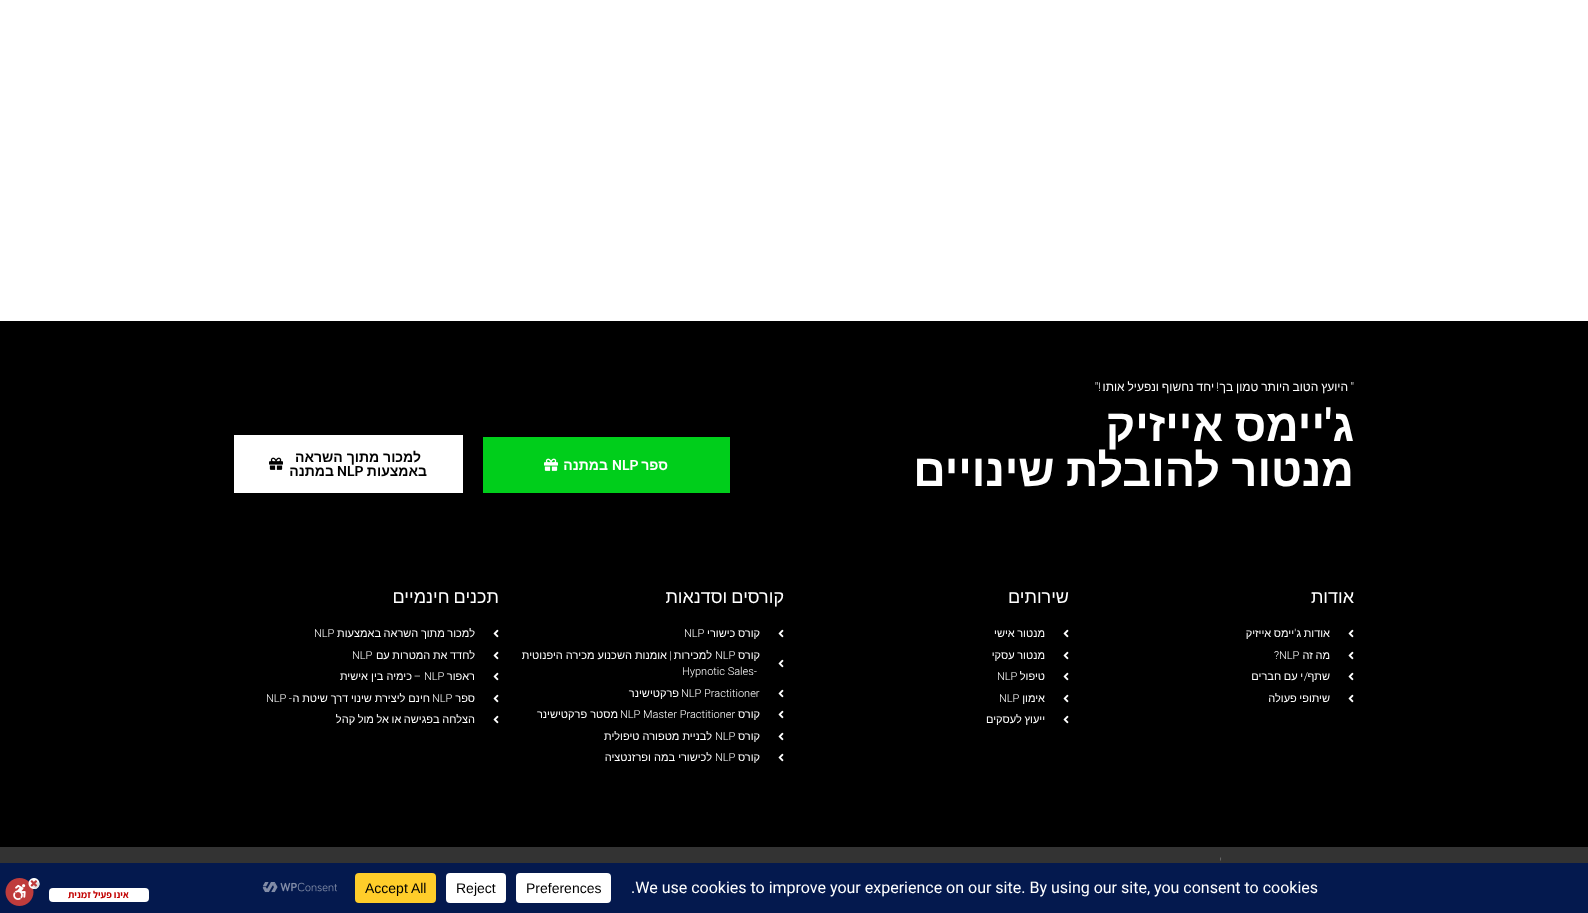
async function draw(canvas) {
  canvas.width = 1588
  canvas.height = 913
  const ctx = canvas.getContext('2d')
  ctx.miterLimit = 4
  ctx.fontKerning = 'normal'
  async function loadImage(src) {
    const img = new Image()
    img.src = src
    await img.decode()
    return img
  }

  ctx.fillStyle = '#fff'
  ctx.fillRect(0, 0, 1588, 913)
  ctx.fillStyle = '#000'
  ctx.fillRect(0, 321, 1588, 526)
  ctx.direction = 'rtl'
  ctx.font = '300 12px Roboto'
  ctx.fillStyle = '#fff'
  ctx.fillText('"', 1354, 391)
  ctx.wordSpacing = '-0.5px'
  ctx.font = '12px Liberation Sans'
  ctx.fillText('היועץ הטוב היותר טמון בך', 1348, 391)
  ctx.wordSpacing = '0px'
  ctx.font = '300 12px Roboto'
  ctx.fillText('!', 1219, 391)
  ctx.wordSpacing = '-0.5px'
  ctx.font = '12px Liberation Sans'
  ctx.fillText('יחד נחשוף ונפעיל אותו', 1214, 391)
  ctx.wordSpacing = '0px'
  ctx.font = '300 12px Roboto'
  ctx.fillText('!"', 1101, 391)
  ctx.font = 'bold 45px Liberation Sans'
  ctx.fillText('ג', 1354, 441)
  ctx.font = '600 45px Roboto'
  ctx.fillText('\'', 1332, 441)
  ctx.wordSpacing = '-1px'
  ctx.font = 'bold 45px Liberation Sans'
  ctx.fillText('יימס אייזיק', 1325, 441)
  ctx.fillText('מנטור להובלת שינויים', 1354, 486)
  ctx.fillStyle = '#00ce1b'
  ctx.fillRect(483, 437, 247, 56)
  ctx.wordSpacing = '0px'
  ctx.font = 'bold 14px Liberation Sans'
  ctx.fillStyle = '#fff'
  ctx.fillText('ספר', 668, 470)
  ctx.direction = 'ltr'
  ctx.font = '600 14px Roboto'
  ctx.fillText('NLP', 612, 470)
  ctx.direction = 'rtl'
  ctx.font = 'bold 14px Liberation Sans'
  ctx.fillText('במתנה', 608, 470)
  ctx.drawImage(await loadImage('image0.png'), 544, 458, 14, 13)
  ctx.fillRect(234, 435, 229, 58)
  ctx.fillStyle = '#000'
  ctx.fillText('למכור מתוך השראה', 421, 462)
  ctx.fillText('באמצעות', 427, 476)
  ctx.direction = 'ltr'
  ctx.font = '600 14px Roboto'
  ctx.fillText('NLP', 337, 476)
  ctx.direction = 'rtl'
  ctx.font = 'bold 14px Liberation Sans'
  ctx.fillText('במתנה', 334, 476)
  ctx.drawImage(await loadImage('image1.png'), 269, 457, 14, 13)
  ctx.font = '18px Liberation Sans'
  ctx.fillStyle = '#fff'
  ctx.fillText('אודות', 1354, 603)
  ctx.drawImage(await loadImage('image2.png'), 1348, 629, 6, 9)
  ctx.wordSpacing = '-0.5px'
  ctx.font = '11px Liberation Sans'
  ctx.fillText('אודות ג', 1330, 637)
  ctx.wordSpacing = '0px'
  ctx.font = '300 11px Roboto'
  ctx.fillText('\'', 1296, 637)
  ctx.wordSpacing = '-0.5px'
  ctx.font = '11px Liberation Sans'
  ctx.fillText('יימס אייזיק', 1294, 637)
  ctx.drawImage(await loadImage('image2.png'), 1348, 651, 6, 9)
  ctx.fillText('מה זה', 1330, 659)
  ctx.wordSpacing = '0px'
  ctx.direction = 'ltr'
  ctx.font = '300 11px Roboto'
  ctx.fillText('?NLP', 1274, 659)
  ctx.drawImage(await loadImage('image2.png'), 1348, 672, 6, 9)
  ctx.direction = 'rtl'
  ctx.font = '11px Liberation Sans'
  ctx.fillText('שתף', 1330, 680)
  ctx.font = '300 11px Roboto'
  ctx.fillText('/', 1308, 680)
  ctx.wordSpacing = '-0.5px'
  ctx.font = '11px Liberation Sans'
  ctx.fillText('י עם חברים', 1303, 680)
  ctx.drawImage(await loadImage('image2.png'), 1348, 694, 6, 9)
  ctx.fillText('שיתופי פעולה', 1330, 702)
  ctx.wordSpacing = '0px'
  ctx.font = '18px Liberation Sans'
  ctx.fillText('שירותים', 1069, 603)
  ctx.drawImage(await loadImage('image2.png'), 1063, 629, 6, 9)
  ctx.wordSpacing = '-0.5px'
  ctx.font = '11px Liberation Sans'
  ctx.fillText('מנטור אישי', 1045, 637)
  ctx.drawImage(await loadImage('image2.png'), 1063, 651, 6, 9)
  ctx.fillText('מנטור עסקי', 1045, 659)
  ctx.drawImage(await loadImage('image2.png'), 1063, 672, 6, 9)
  ctx.wordSpacing = '0px'
  ctx.fillText('טיפול', 1045, 680)
  ctx.direction = 'ltr'
  ctx.font = '300 11px Roboto'
  ctx.fillText('NLP', 997, 680)
  ctx.drawImage(await loadImage('image2.png'), 1063, 694, 6, 9)
  ctx.direction = 'rtl'
  ctx.font = '11px Liberation Sans'
  ctx.fillText('אימון', 1045, 702)
  ctx.direction = 'ltr'
  ctx.font = '300 11px Roboto'
  ctx.fillText('NLP', 999, 702)
  ctx.drawImage(await loadImage('image2.png'), 1063, 715, 6, 9)
  ctx.wordSpacing = '-0.5px'
  ctx.direction = 'rtl'
  ctx.font = '11px Liberation Sans'
  ctx.fillText('ייעוץ לעסקים', 1045, 723)
  ctx.wordSpacing = '-1px'
  ctx.font = '18px Liberation Sans'
  ctx.fillText('קורסים וסדנאות', 784, 603)
  ctx.drawImage(await loadImage('image2.png'), 778, 629, 6, 9)
  ctx.wordSpacing = '-0.5px'
  ctx.font = '11px Liberation Sans'
  ctx.fillText('קורס כישורי', 760, 637)
  ctx.wordSpacing = '0px'
  ctx.direction = 'ltr'
  ctx.font = '300 11px Roboto'
  ctx.fillText('NLP', 684, 637)
  ctx.drawImage(await loadImage('image2.png'), 778, 659, 6, 9)
  ctx.direction = 'rtl'
  ctx.font = '11px Liberation Sans'
  ctx.fillText('קורס', 760, 659)
  ctx.direction = 'ltr'
  ctx.font = '300 11px Roboto'
  ctx.fillText('NLP', 715, 659)
  ctx.direction = 'rtl'
  ctx.font = '11px Liberation Sans'
  ctx.fillText('למכירות', 712, 659)
  ctx.font = '300 11px Roboto'
  ctx.fillText('|', 672, 659)
  ctx.font = '11px Liberation Sans'
  ctx.fillText('אומנות השכנוע מכירה היפנוטית', 667, 659)
  ctx.direction = 'ltr'
  ctx.font = '300 11px Roboto'
  ctx.fillText('Hypnotic Sales-', 682, 675)
  ctx.drawImage(await loadImage('image2.png'), 778, 689, 6, 9)
  ctx.fillText('NLP Practitioner', 681, 697)
  ctx.direction = 'rtl'
  ctx.font = '11px Liberation Sans'
  ctx.fillText('פרקטישינר', 679, 697)
  ctx.drawImage(await loadImage('image2.png'), 778, 710, 6, 9)
  ctx.fillText('קורס', 760, 718)
  ctx.direction = 'ltr'
  ctx.font = '300 11px Roboto'
  ctx.fillText('NLP Master Practitioner', 620, 718)
  ctx.direction = 'rtl'
  ctx.font = '11px Liberation Sans'
  ctx.fillText('מסטר פרקטישינר', 618, 718)
  ctx.drawImage(await loadImage('image2.png'), 778, 732, 6, 9)
  ctx.fillText('קורס', 760, 740)
  ctx.direction = 'ltr'
  ctx.font = '300 11px Roboto'
  ctx.fillText('NLP', 715, 740)
  ctx.direction = 'rtl'
  ctx.font = '11px Liberation Sans'
  ctx.fillText('לבניית מטפורה טיפולית', 712, 740)
  ctx.drawImage(await loadImage('image2.png'), 778, 753, 6, 9)
  ctx.fillText('קורס', 760, 761)
  ctx.direction = 'ltr'
  ctx.font = '300 11px Roboto'
  ctx.fillText('NLP', 715, 761)
  ctx.direction = 'rtl'
  ctx.font = '11px Liberation Sans'
  ctx.fillText('לכישורי במה ופרזנטציה', 712, 761)
  ctx.wordSpacing = '-1px'
  ctx.font = '18px Liberation Sans'
  ctx.fillText('תכנים חינמיים', 499, 603)
  ctx.drawImage(await loadImage('image2.png'), 493, 629, 6, 9)
  ctx.wordSpacing = '-0.5px'
  ctx.font = '11px Liberation Sans'
  ctx.fillText('למכור מתוך השראה באמצעות', 475, 637)
  ctx.wordSpacing = '0px'
  ctx.direction = 'ltr'
  ctx.font = '300 11px Roboto'
  ctx.fillText('NLP', 314, 637)
  ctx.drawImage(await loadImage('image2.png'), 493, 651, 6, 9)
  ctx.wordSpacing = '-0.5px'
  ctx.direction = 'rtl'
  ctx.font = '11px Liberation Sans'
  ctx.fillText('לחדד את המטרות עם', 475, 659)
  ctx.wordSpacing = '0px'
  ctx.direction = 'ltr'
  ctx.font = '300 11px Roboto'
  ctx.fillText('NLP', 352, 659)
  ctx.drawImage(await loadImage('image2.png'), 493, 672, 6, 9)
  ctx.direction = 'rtl'
  ctx.font = '11px Liberation Sans'
  ctx.fillText('ראפור', 475, 680)
  ctx.direction = 'ltr'
  ctx.font = '300 11px Roboto'
  ctx.fillText('NLP', 424, 680)
  ctx.direction = 'rtl'
  ctx.fillText('–', 421, 680)
  ctx.font = '11px Liberation Sans'
  ctx.fillText('כימיה בין אישית', 412, 680)
  ctx.drawImage(await loadImage('image2.png'), 493, 694, 6, 9)
  ctx.fillText('ספר', 475, 702)
  ctx.direction = 'ltr'
  ctx.font = '300 11px Roboto'
  ctx.fillText('NLP', 432, 702)
  ctx.wordSpacing = '-0.25px'
  ctx.direction = 'rtl'
  ctx.font = '11px Liberation Sans'
  ctx.fillText('חינם ליצירת שינוי דרך שיטת ה', 430, 702)
  ctx.wordSpacing = '0px'
  ctx.font = '300 11px Roboto'
  ctx.fillText('-', 292, 702)
  ctx.direction = 'ltr'
  ctx.fillText('NLP', 266, 702)
  ctx.drawImage(await loadImage('image2.png'), 493, 715, 6, 9)
  ctx.wordSpacing = '-0.5px'
  ctx.direction = 'rtl'
  ctx.font = '11px Liberation Sans'
  ctx.fillText('הצלחה בפגישה או אל מול קהל', 475, 723)
  ctx.fillStyle = '#333'
  ctx.fillRect(0, 847, 1588, 16)
  ctx.wordSpacing = '0px'
  ctx.font = '300 14px Roboto'
  ctx.fillStyle = '#7e7e7e'
  ctx.fillText('\'', 1222, 868)
  ctx.fillStyle = '#04194e'
  ctx.fillRect(0, 863, 1588, 50)
  ctx.direction = 'ltr'
  ctx.font = '16px Roboto'
  ctx.fillStyle = '#fff'
  ctx.fillText('.We use cookies to improve your experience on our site. By using our site, you consent to cookies', 631, 893)
  ctx.beginPath()
  ctx.roundRect(516, 873, 95, 30, 4)
  ctx.fill()
  ctx.font = '14px Liberation Sans'
  ctx.fillStyle = '#000'
  ctx.fillText('Preferences', 526, 893)
  ctx.fillStyle = '#fff'
  ctx.beginPath()
  ctx.roundRect(446, 873, 60, 30, 4)
  ctx.fill()
  ctx.fillStyle = '#000'
  ctx.fillText('Reject', 456, 893)
  ctx.fillStyle = '#ffcd2a'
  ctx.beginPath()
  ctx.roundRect(355, 873, 81, 30, 4)
  ctx.fill()
  ctx.fillStyle = '#000'
  ctx.fillText('Accept All', 365, 893)
  ctx.drawImage(await loadImage('image3.png'), 262, 882, 75, 11)
  ctx.fillStyle = '#fff'
  ctx.beginPath()
  ctx.roundRect(49, 888, 100, 14, 4)
  ctx.fill()
  ctx.direction = 'rtl'
  ctx.font = 'bold 10px Assistant'
  ctx.fillStyle = '#c20000'
  ctx.fillText('אינו פעיל זמנית', 129, 898)
  ctx.drawImage(await loadImage('image4.png'), 5, 878, 35, 28)
}

draw(document.querySelector('canvas'))
